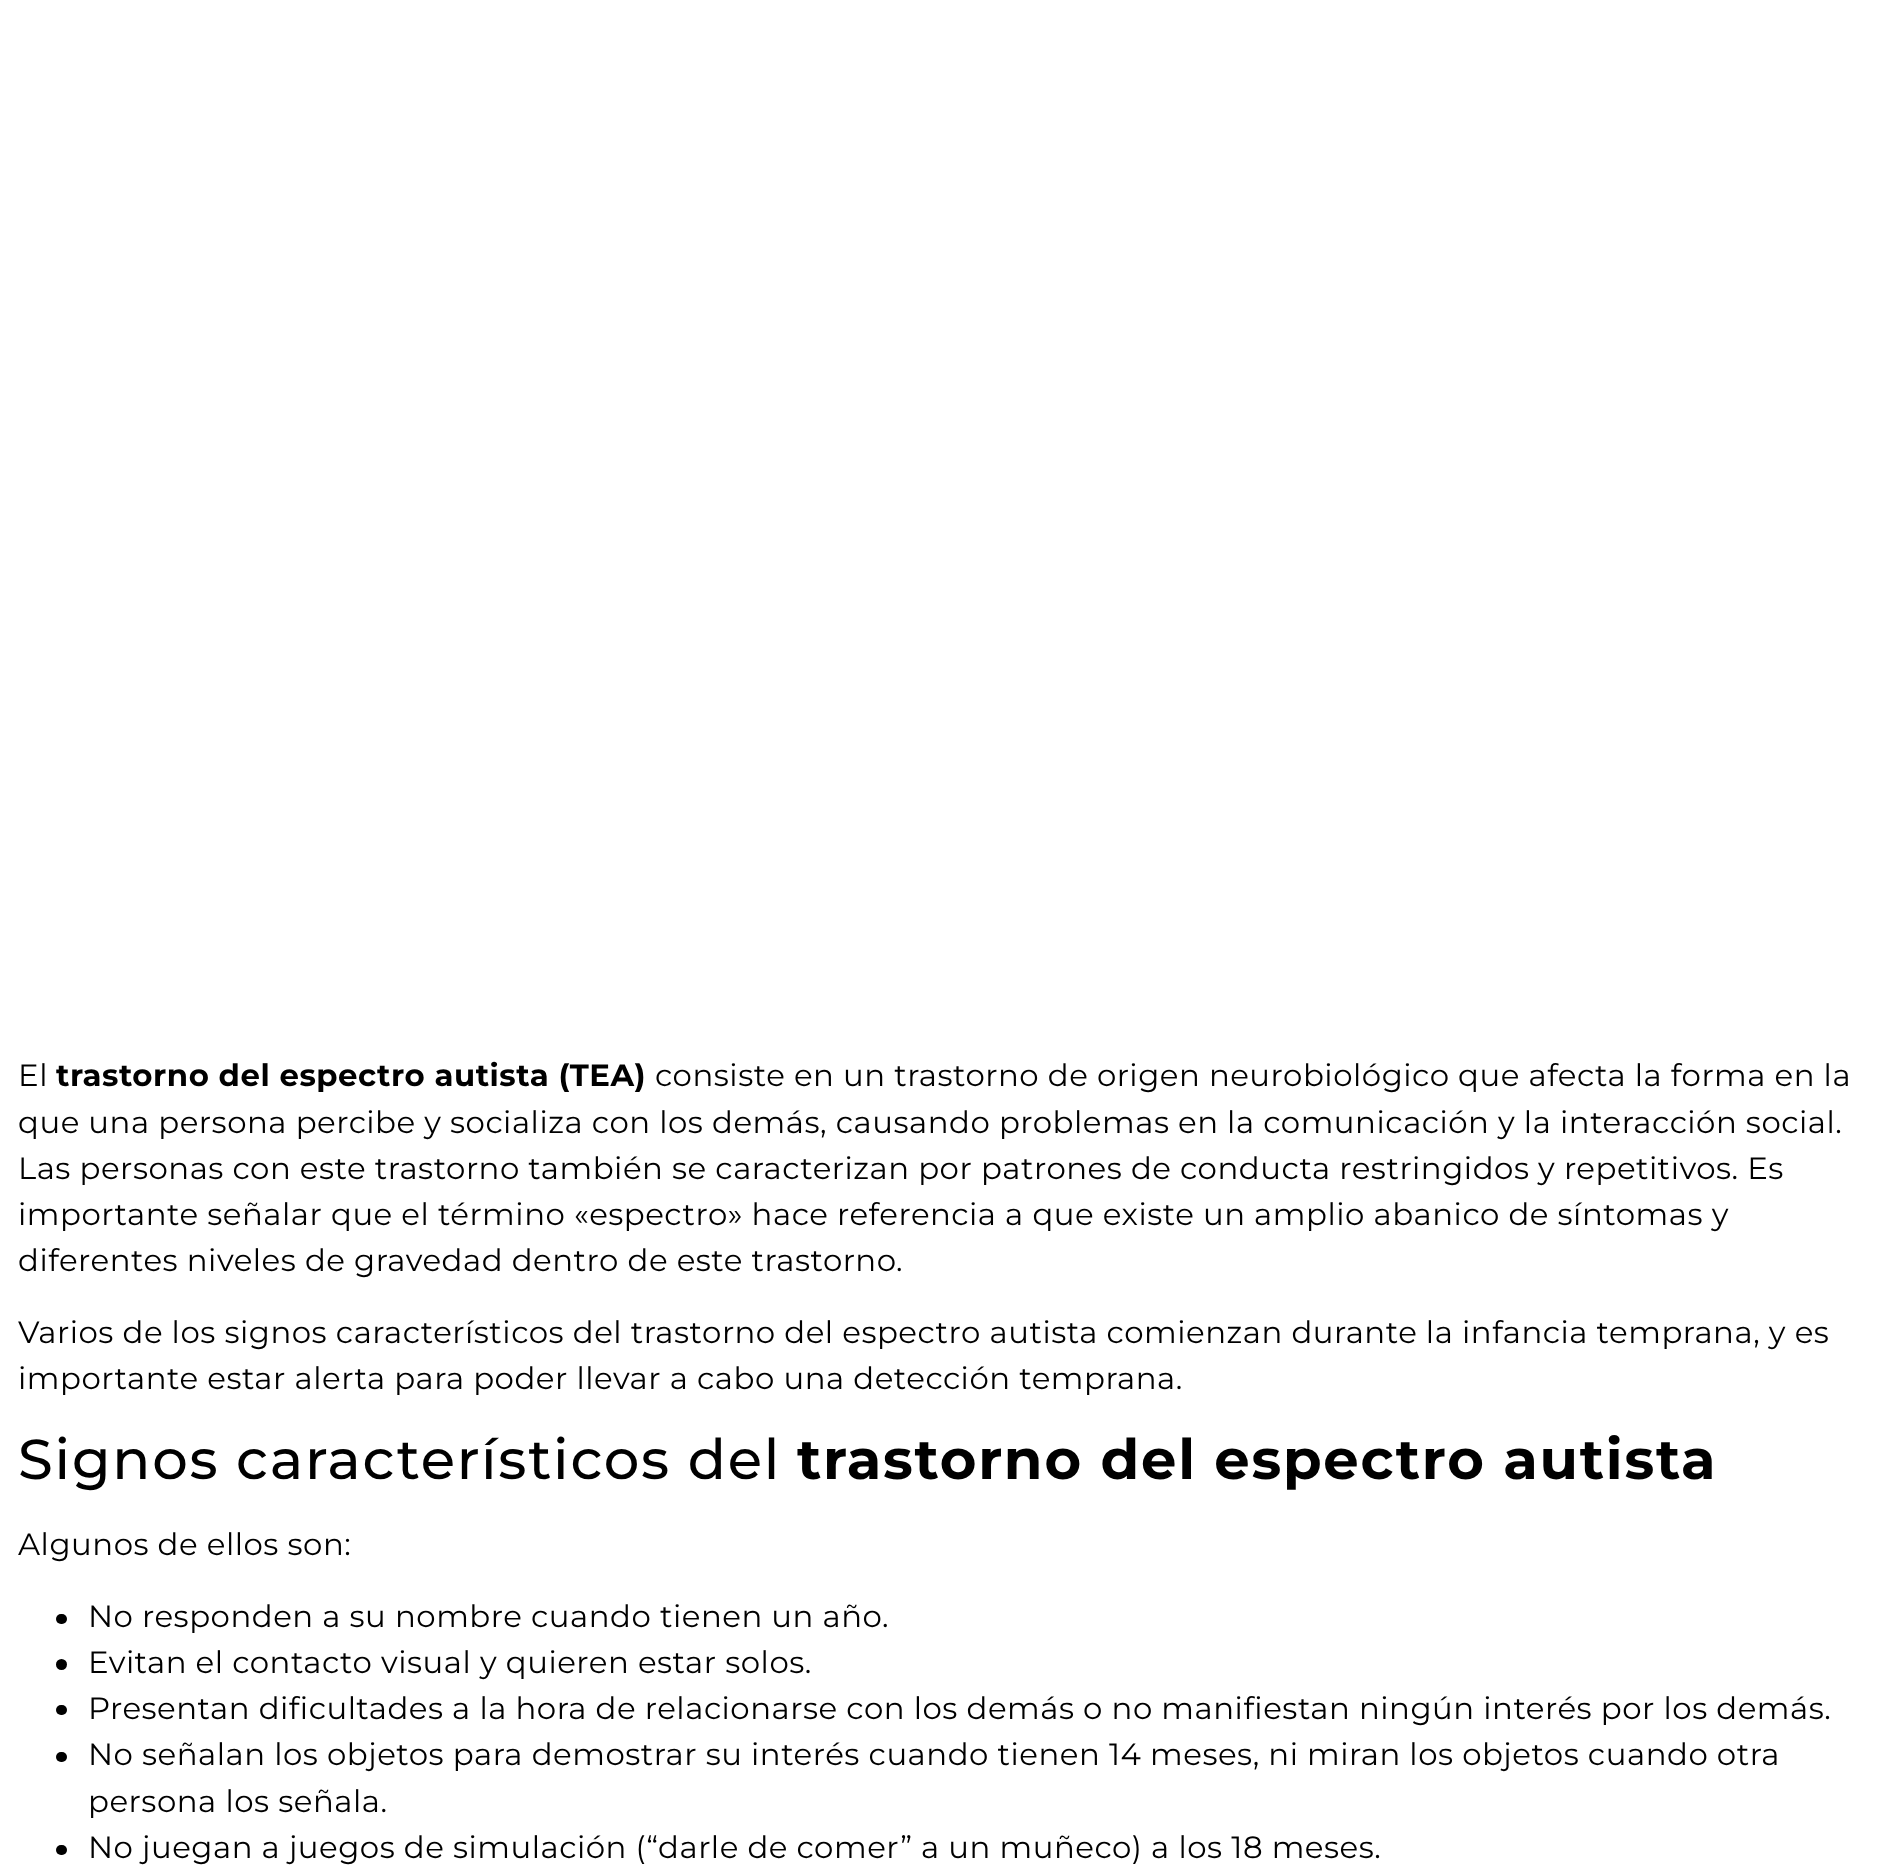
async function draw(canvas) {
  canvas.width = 1893
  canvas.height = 1866
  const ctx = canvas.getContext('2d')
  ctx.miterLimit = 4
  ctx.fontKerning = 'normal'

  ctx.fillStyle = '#fff'
  ctx.fillRect(0, 0, 1893, 1866)
  ctx.letterSpacing = '0.53px'
  ctx.font = '30.8px Montserrat'
  ctx.fillStyle = '#000'
  ctx.fillText('El', 18, 1086)
  ctx.font = 'bold 30.8px Montserrat'
  ctx.fillText('trastorno del espectro autista (TEA)', 56, 1086)
  ctx.font = '30.8px Montserrat'
  ctx.fillText('consiste en un trastorno de origen neurobiológico que afecta la forma en la', 655, 1086)
  ctx.fillText('que una persona percibe y socializa con los demás, causando problemas en la comunicación y la interacción social.', 18, 1133)
  ctx.fillText('Las personas con este trastorno también se caracterizan por patrones de conducta restringidos y repetitivos. Es', 18, 1179)
  ctx.fillText('importante señalar que el término «espectro» hace referencia a que existe un amplio abanico de síntomas y', 18, 1225)
  ctx.fillText('diferentes niveles de gravedad dentro de este trastorno.', 18, 1271)
  ctx.fillText('Varios de los signos característicos del trastorno del espectro autista comienzan durante la infancia temprana, y es', 18, 1343)
  ctx.fillText('importante estar alerta para poder llevar a cabo una detección temprana.', 18, 1389)
  ctx.letterSpacing = '1.75px'
  ctx.font = '500 56px Montserrat'
  ctx.fillText('Signos característicos del', 18, 1479)
  ctx.font = 'bold 56px Montserrat'
  ctx.fillText('trastorno del espectro autista', 797, 1479)
  ctx.letterSpacing = '0.53px'
  ctx.font = '30.8px Montserrat'
  ctx.fillText('Algunos de ellos son:', 18, 1555)
  ctx.beginPath()
  ctx.roundRect(56, 1614, 11, 10, 5)
  ctx.fill()
  ctx.fillText('No responden a su nombre cuando tienen un año.', 88, 1627)
  ctx.beginPath()
  ctx.arc(61.5, 1664.5, 5.5, 0, 2 * Math.PI)
  ctx.fill()
  ctx.fillText('Evitan el contacto visual y quieren estar solos.', 88, 1673)
  ctx.beginPath()
  ctx.roundRect(56, 1705, 11, 10, 5)
  ctx.fill()
  ctx.fillText('Presentan dificultades a la hora de relacionarse con los demás o no manifiestan ningún interés por los demás.', 88, 1719)
  ctx.beginPath()
  ctx.roundRect(56, 1752, 11, 10, 5)
  ctx.fill()
  ctx.fillText('No señalan los objetos para demostrar su interés cuando tienen 14 meses, ni miran los objetos cuando otra', 88, 1765)
  ctx.fillText('persona los señala.', 88, 1812)
  ctx.beginPath()
  ctx.roundRect(56, 1845, 11, 10, 5)
  ctx.fill()
  ctx.fillText('No juegan a juegos de simulación (“darle de comer” a un muñeco) a los 18 meses.', 88, 1858)
}

draw(document.querySelector('canvas'))
